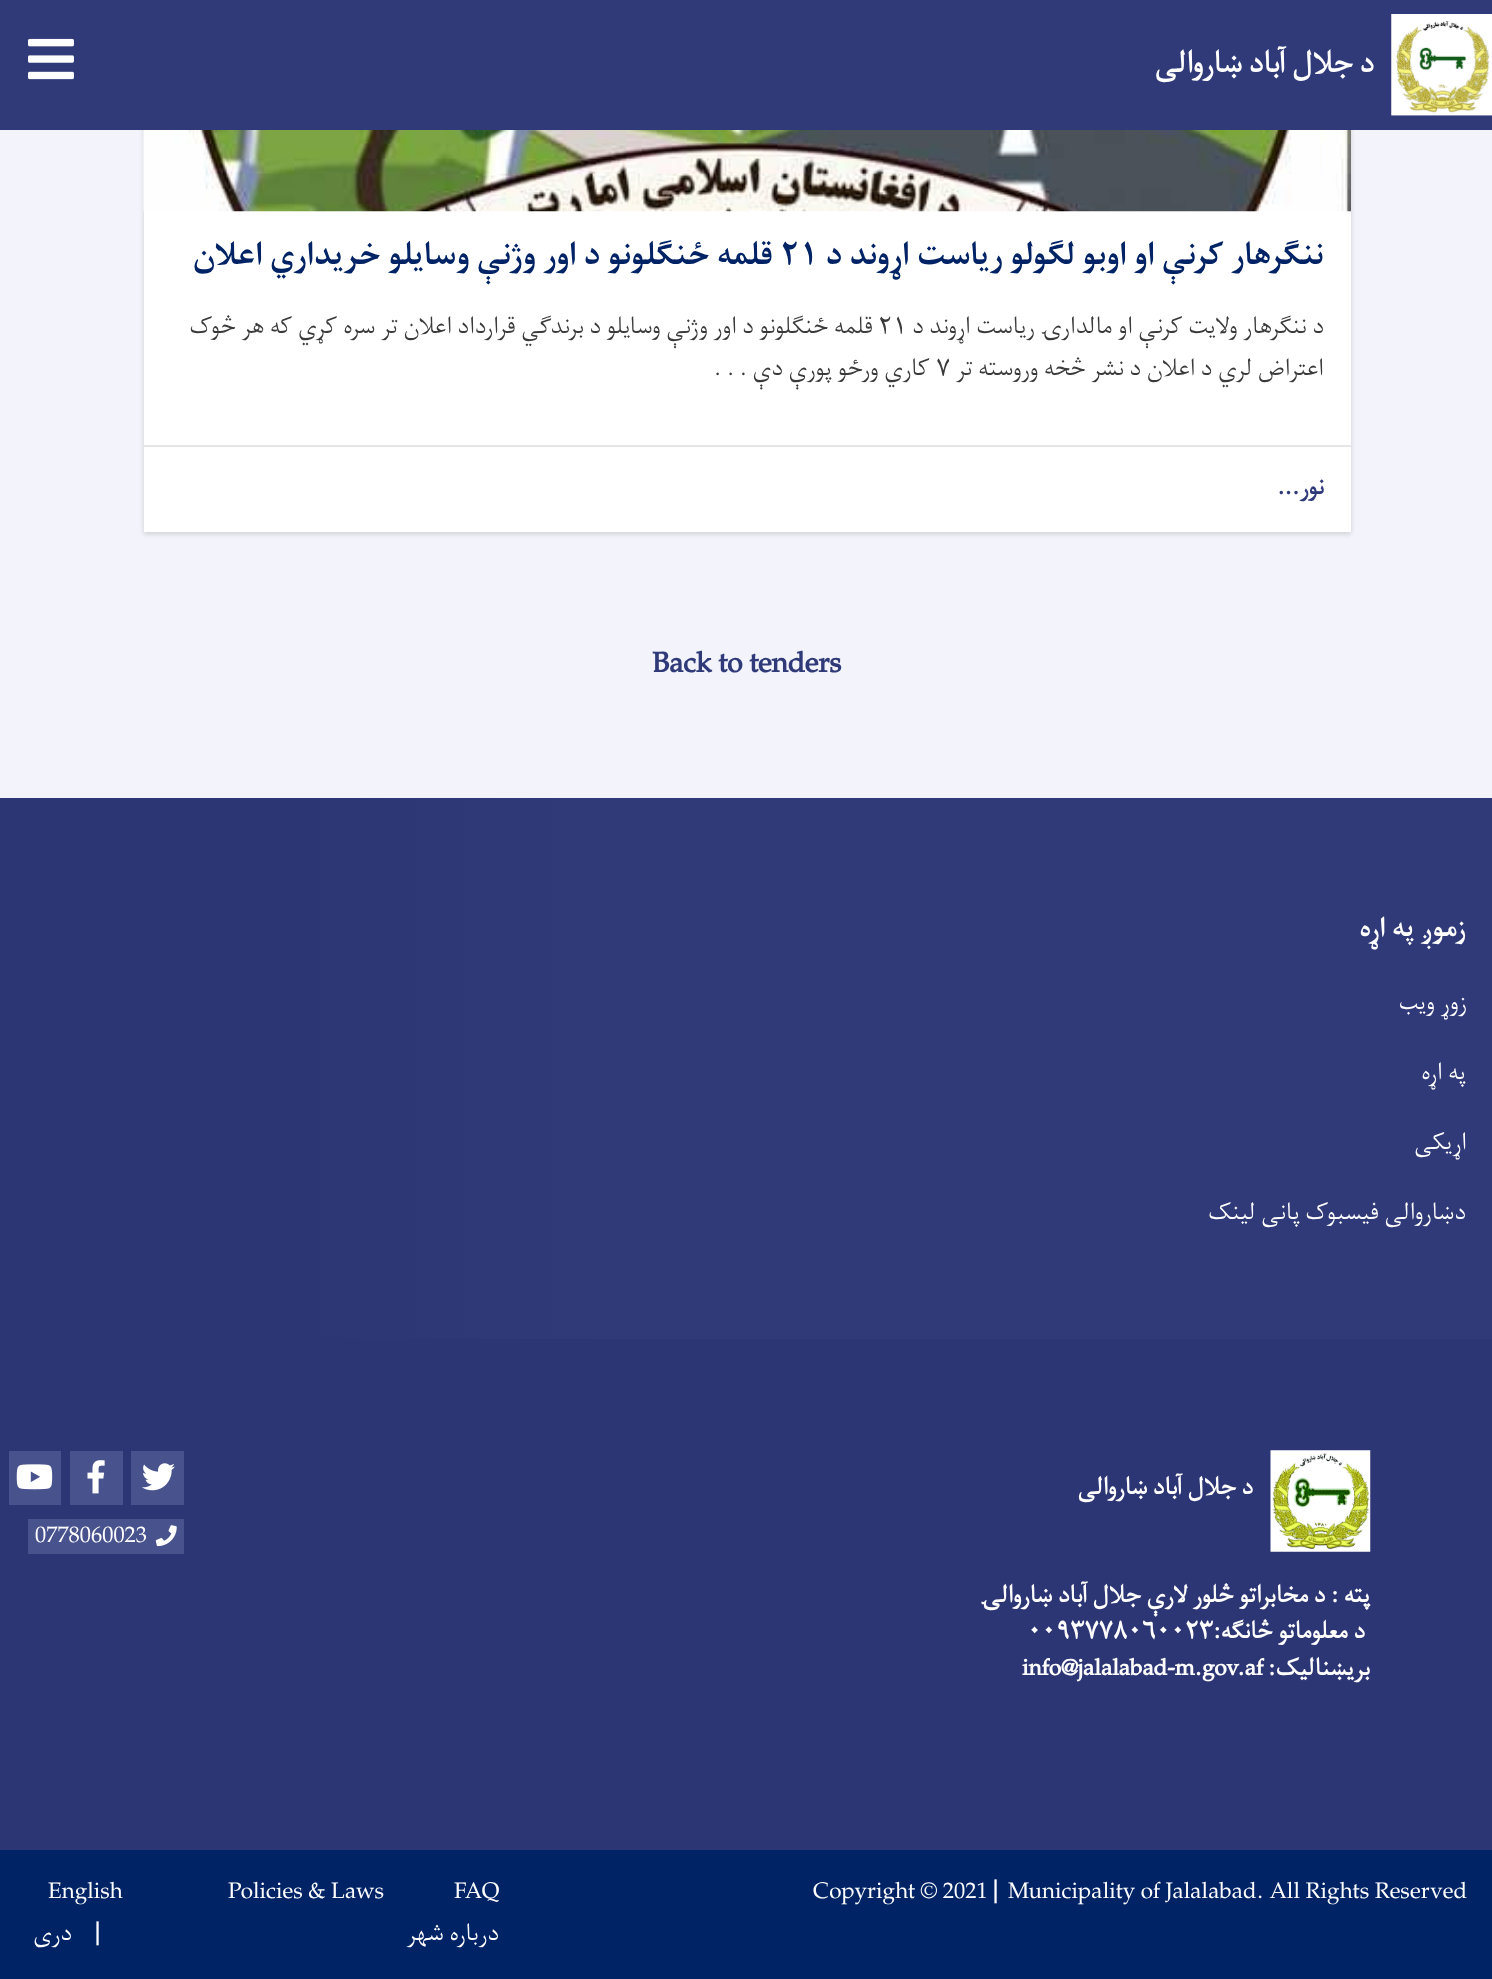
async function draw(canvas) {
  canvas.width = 1492
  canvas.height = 1979
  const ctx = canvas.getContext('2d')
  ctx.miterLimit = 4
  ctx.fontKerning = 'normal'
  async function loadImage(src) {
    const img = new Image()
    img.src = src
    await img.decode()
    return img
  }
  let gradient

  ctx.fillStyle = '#f2f3fb'
  ctx.fillRect(0, 0, 1492, 1979)
  ctx.fillStyle = '#b9b9b999'
  ctx.filter = 'blur(2.5px)'
  ctx.beginPath()
  ctx.rect(144, -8, 1207, 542)
  ctx.fill()
  ctx.filter = 'none'
  ctx.fillStyle = '#303a79'
  ctx.fillRect(0, 0, 1492, 130)
  ctx.drawImage(await loadImage('image0.png'), 1391, 14, 101, 102)
  ctx.direction = 'rtl'
  ctx.font = 'bold 35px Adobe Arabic'
  ctx.fillStyle = '#fff'
  ctx.fillText('د جلال آباد ښاروالی', 1374, 72)
  ctx.drawImage(await loadImage('image1.png'), 28, 38, 46, 42)
  ctx.fillRect(144, 211, 1207, 321)
  ctx.drawImage(await loadImage('image2.png'), 143, 130, 1208, 82)
  ctx.font = 'bold 36.75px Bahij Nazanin'
  ctx.fillStyle = '#002366'
  ctx.fillText('ننګرهار کرنې او اوبو لګولو رياست اړوند د', 1324, 264)
  ctx.direction = 'ltr'
  ctx.fillText('٢١', 780, 264)
  ctx.direction = 'rtl'
  ctx.fillText('قلمه ځنګلونو د اور وژنې وسايلو خريداري اعلان', 773, 264)
  ctx.font = '28px Adobe Arabic'
  ctx.fillStyle = '#3a3a3a'
  ctx.fillText('د ننګرهار ولایت کرنې او مالدارۍ رياست اړوند د', 1324, 333)
  ctx.direction = 'ltr'
  ctx.fillText('٢١', 878, 333)
  ctx.direction = 'rtl'
  ctx.fillText('قلمه ځنګلونو د اور وژنې وسايلو د برندګي قرارداد اعلان تر سره کړي که هر څوک', 873, 333)
  ctx.fillText('اعتراض لري د اعلان د نشر څخه وروسته تر', 1324, 375)
  ctx.direction = 'ltr'
  ctx.fillText('٧', 936, 375)
  ctx.direction = 'rtl'
  ctx.fillText('کاري ورځو پورې دې . . .', 930, 375)
  ctx.fillStyle = '#e5e5e5'
  ctx.fillRect(144, 445, 1207, 2)
  ctx.font = 'bold 28px Adobe Arabic'
  ctx.fillStyle = '#303a79'
  ctx.fillText('نور...', 1324, 494)
  ctx.direction = 'ltr'
  ctx.font = 'bold 35px Adobe Arabic'
  ctx.fillText('Back to tenders', 652, 672)
  gradient = ctx.createLinearGradient(0, 1389, 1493, 1389)
  gradient.addColorStop(0, '#2d3674')
  gradient.addColorStop(0.2, '#2d3674')
  gradient.addColorStop(0.4, '#303a79')
  ctx.fillStyle = gradient
  ctx.fillRect(0, 798, 1492, 541)
  ctx.direction = 'rtl'
  ctx.font = 'bold 31.5px Bahij Nazanin'
  ctx.fillStyle = '#fff'
  ctx.fillText('زموږ په اړه', 1466, 936)
  ctx.font = '28px Adobe Arabic'
  ctx.fillText('زوړ ویب', 1467, 1009)
  ctx.fillText('په اړه', 1466, 1079)
  ctx.fillText('اړیکی', 1467, 1149)
  ctx.fillText('دښاروالی فیسبوک پانی لینک', 1466, 1219)
  ctx.fillStyle = '#2d3674'
  ctx.fillRect(0, 1339, 1492, 511)
  ctx.drawImage(await loadImage('image3.png'), 1270, 1450, 101, 102)
  ctx.font = 'bold 28px Adobe Arabic'
  ctx.fillStyle = '#fff'
  ctx.fillText('د جلال آباد ښاروالی', 1253, 1494)
  ctx.fillStyle = '#48528d'
  ctx.fillRect(131, 1451, 53, 54)
  ctx.drawImage(await loadImage('image4.png'), 142, 1463, 33, 28)
  ctx.fillRect(70, 1451, 53, 54)
  ctx.drawImage(await loadImage('image5.png'), 87, 1460, 18, 34)
  ctx.fillRect(9, 1451, 52, 54)
  ctx.drawImage(await loadImage('image6.png'), 16, 1464, 37, 26)
  ctx.fillRect(28, 1519, 156, 35)
  ctx.drawImage(await loadImage('image7.png'), 155, 1525, 22, 22)
  ctx.direction = 'ltr'
  ctx.font = '28px Adobe Arabic'
  ctx.fillStyle = '#fff'
  ctx.fillText('0778060023', 35, 1542)
  ctx.direction = 'rtl'
  ctx.font = 'bold 28px Adobe Arabic'
  ctx.fillText('پته : د مخابراتو څلور لارې جلال آباد ښاروالۍ', 1370, 1602)
  ctx.fillText('د معلوماتو څانګه:', 1365, 1638)
  ctx.direction = 'ltr'
  ctx.fillText('۰۰۹۳۷۷۸۰۶۰۰۲۳', 1027, 1638)
  ctx.direction = 'rtl'
  ctx.fillText('بریښنالیک:', 1370, 1675)
  ctx.direction = 'ltr'
  ctx.fillText('info@jalalabad-m.gov.af', 1022, 1675)
  ctx.fillStyle = '#002366'
  ctx.fillRect(0, 1850, 1492, 129)
  ctx.font = '28px Adobe Arabic'
  ctx.fillStyle = '#fff'
  ctx.fillText('Copyright © 2021 | Municipality of Jalalabad. All Rights Reserved', 813, 1898)
  ctx.fillText('FAQ', 454, 1898)
  ctx.fillText('Policies & Laws', 228, 1898)
  ctx.direction = 'rtl'
  ctx.fillText('درباره شهر', 499, 1940)
  ctx.direction = 'ltr'
  ctx.fillText('English', 48, 1898)
  ctx.fillText('|', 95, 1940)
  ctx.direction = 'rtl'
  ctx.fillText('دری', 72, 1940)
}

draw(document.querySelector('canvas'))
